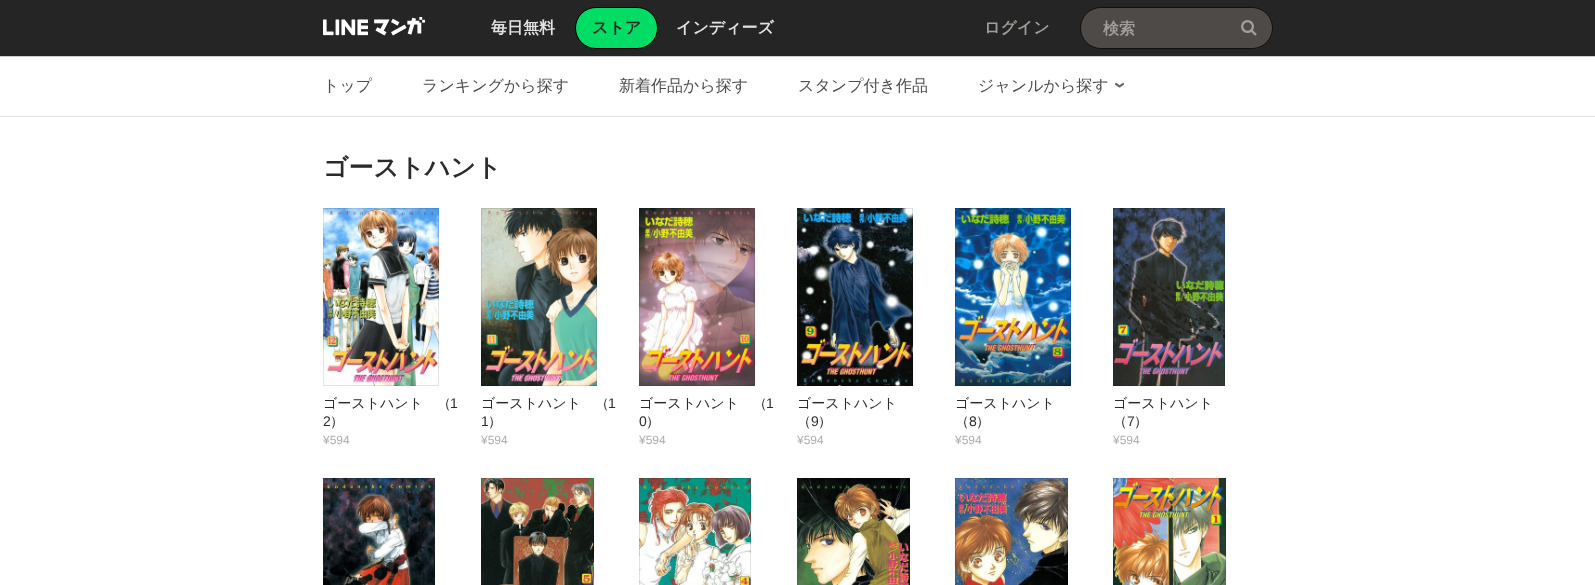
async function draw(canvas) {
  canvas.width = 1595
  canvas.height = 585
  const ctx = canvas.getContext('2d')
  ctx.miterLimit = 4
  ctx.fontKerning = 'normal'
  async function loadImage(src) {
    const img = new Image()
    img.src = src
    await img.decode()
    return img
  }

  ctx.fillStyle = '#fff'
  ctx.fillRect(0, 0, 1595, 585)
  ctx.fillStyle = '#262525'
  ctx.fillRect(0, 0, 1595, 56)
  ctx.drawImage(await loadImage('image0.png'), 323, 17, 102, 19)
  ctx.font = 'bold 16px WenQuanYi Zen Hei'
  ctx.fillStyle = '#e3e3e3'
  ctx.fillText('毎日無料', 491, 33)
  ctx.fillStyle = '#00dc64'
  ctx.beginPath()
  ctx.roundRect(575.5, 7.5, 82, 41, 20.5)
  ctx.fill()
  ctx.strokeStyle = '#000'
  ctx.stroke()
  ctx.fillStyle = '#262525'
  ctx.fillText('ストア', 592, 33)
  ctx.fillStyle = '#e3e3e3'
  ctx.fillText('インディーズ', 676, 33)
  ctx.fillStyle = '#a19f9a'
  ctx.fillText('ログイン', 984, 33)
  ctx.fillStyle = '#4d4a48'
  ctx.beginPath()
  ctx.roundRect(1080.5, 7.5, 192, 41, 20.5)
  ctx.fill()
  ctx.strokeStyle = '#121111'
  ctx.stroke()
  ctx.fillStyle = '#a19f9a'
  ctx.fillText('検索', 1103, 34)
  ctx.drawImage(await loadImage('image1.png'), 1241, 20, 16, 16)
  ctx.fillStyle = '#ccc'
  ctx.fillRect(0, 56, 1595, 1)
  ctx.font = '500 16px WenQuanYi Zen Hei'
  ctx.fillStyle = '#4d4d4d'
  ctx.fillText('トップ', 323, 91)
  ctx.fillText('ランキングから探す', 422, 91)
  ctx.fillText('新着作品から探す', 619, 91)
  ctx.fillText('スタンプ付き作品', 798, 91)
  ctx.fillText('ジャンルから探す', 978, 91)
  ctx.drawImage(await loadImage('image2.png'), 1115, 83, 9, 5)
  ctx.fillStyle = '#e2e1e1'
  ctx.fillRect(0, 116, 1595, 1)
  ctx.font = 'bold 25px WenQuanYi Zen Hei'
  ctx.fillStyle = '#2b2b2a'
  ctx.fillText('ゴーストハント', 323, 176)
  ctx.drawImage(await loadImage('image3.png'), 323, 208, 116, 178)
  ctx.strokeStyle = '#0000001a'
  ctx.strokeRect(323.5, 208.5, 115, 177)
  ctx.font = '500 14px WenQuanYi Zen Hei'
  ctx.fillText('ゴーストハント　（', 323, 408)
  ctx.font = '14px Liberation Sans'
  ctx.fillText('1', 450, 408)
  ctx.fillText('2', 323, 426)
  ctx.font = '500 14px WenQuanYi Zen Hei'
  ctx.fillText('）', 330, 426)
  ctx.font = '12px Liberation Sans'
  ctx.fillStyle = '#acadae'
  ctx.fillText('¥594', 323, 444)
  ctx.drawImage(await loadImage('image4.png'), 481, 208, 116, 178)
  ctx.strokeRect(481.5, 208.5, 115, 177)
  ctx.font = '500 14px WenQuanYi Zen Hei'
  ctx.fillStyle = '#2b2b2a'
  ctx.fillText('ゴーストハント　（', 481, 408)
  ctx.font = '14px Liberation Sans'
  ctx.fillText('1', 608, 408)
  ctx.fillText('1', 481, 426)
  ctx.font = '500 14px WenQuanYi Zen Hei'
  ctx.fillText('）', 488, 426)
  ctx.font = '12px Liberation Sans'
  ctx.fillStyle = '#acadae'
  ctx.fillText('¥594', 481, 444)
  ctx.drawImage(await loadImage('image5.png'), 639, 208, 116, 178)
  ctx.strokeRect(639.5, 208.5, 115, 177)
  ctx.font = '500 14px WenQuanYi Zen Hei'
  ctx.fillStyle = '#2b2b2a'
  ctx.fillText('ゴーストハント　（', 639, 408)
  ctx.font = '14px Liberation Sans'
  ctx.fillText('1', 766, 408)
  ctx.fillText('0', 639, 426)
  ctx.font = '500 14px WenQuanYi Zen Hei'
  ctx.fillText('）', 646, 426)
  ctx.font = '12px Liberation Sans'
  ctx.fillStyle = '#acadae'
  ctx.fillText('¥594', 639, 444)
  ctx.drawImage(await loadImage('image6.png'), 797, 208, 116, 178)
  ctx.strokeRect(797.5, 208.5, 115, 177)
  ctx.font = '500 14px WenQuanYi Zen Hei'
  ctx.fillStyle = '#2b2b2a'
  ctx.fillText('ゴーストハント', 797, 408)
  ctx.fillText('（', 797, 426)
  ctx.font = '14px Liberation Sans'
  ctx.fillText('9', 811, 426)
  ctx.font = '500 14px WenQuanYi Zen Hei'
  ctx.fillText('）', 818, 426)
  ctx.font = '12px Liberation Sans'
  ctx.fillStyle = '#acadae'
  ctx.fillText('¥594', 797, 444)
  ctx.drawImage(await loadImage('image7.png'), 955, 208, 116, 178)
  ctx.strokeRect(955.5, 208.5, 115, 177)
  ctx.font = '500 14px WenQuanYi Zen Hei'
  ctx.fillStyle = '#2b2b2a'
  ctx.fillText('ゴーストハント', 955, 408)
  ctx.fillText('（', 955, 426)
  ctx.font = '14px Liberation Sans'
  ctx.fillText('8', 969, 426)
  ctx.font = '500 14px WenQuanYi Zen Hei'
  ctx.fillText('）', 976, 426)
  ctx.font = '12px Liberation Sans'
  ctx.fillStyle = '#acadae'
  ctx.fillText('¥594', 955, 444)
  ctx.drawImage(await loadImage('image8.png'), 1113, 208, 112, 178)
  ctx.strokeRect(1113.5, 208.5, 111, 177)
  ctx.font = '500 14px WenQuanYi Zen Hei'
  ctx.fillStyle = '#2b2b2a'
  ctx.fillText('ゴーストハント', 1113, 408)
  ctx.fillText('（', 1113, 426)
  ctx.font = '14px Liberation Sans'
  ctx.fillText('7', 1127, 426)
  ctx.font = '500 14px WenQuanYi Zen Hei'
  ctx.fillText('）', 1134, 426)
  ctx.font = '12px Liberation Sans'
  ctx.fillStyle = '#acadae'
  ctx.fillText('¥594', 1113, 444)
  ctx.drawImage(await loadImage('image9.png'), 323, 478, 112, 107)
  ctx.strokeRect(323.5, 478.5, 111, 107)
  ctx.drawImage(await loadImage('image10.png'), 481, 478, 113, 107)
  ctx.strokeRect(481.5, 478.5, 112, 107)
  ctx.drawImage(await loadImage('image11.png'), 639, 478, 112, 107)
  ctx.strokeRect(639.5, 478.5, 111, 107)
  ctx.drawImage(await loadImage('image12.png'), 797, 478, 113, 107)
  ctx.strokeRect(797.5, 478.5, 112, 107)
  ctx.drawImage(await loadImage('image13.png'), 955, 478, 113, 107)
  ctx.strokeRect(955.5, 478.5, 112, 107)
  ctx.drawImage(await loadImage('image14.png'), 1113, 478, 113, 107)
  ctx.strokeRect(1113.5, 478.5, 112, 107)
}

draw(document.querySelector('canvas'))
